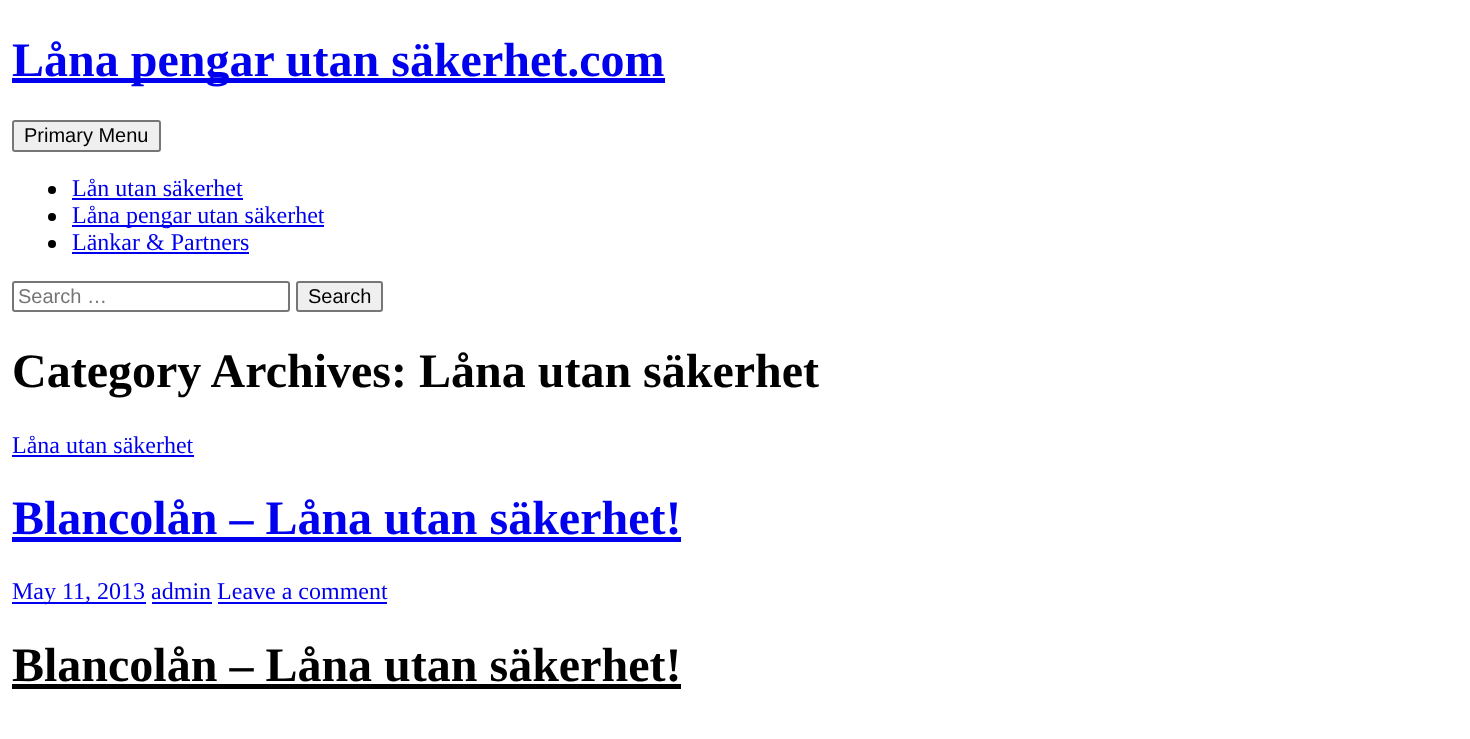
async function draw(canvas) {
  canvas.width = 1470
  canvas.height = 739
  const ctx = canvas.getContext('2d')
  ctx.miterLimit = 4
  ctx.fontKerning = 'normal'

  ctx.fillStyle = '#fff'
  ctx.fillRect(0, 0, 1470, 739)
  ctx.fillStyle = '#00e'
  ctx.fillRect(12, 78, 653, 5)
  ctx.font = 'bold 48px Liberation Serif'
  ctx.fillText('Låna pengar utan säkerhet.com', 12, 76)
  ctx.fillStyle = '#efefef'
  ctx.beginPath()
  ctx.roundRect(13, 121, 147, 30, 2)
  ctx.fill()
  ctx.strokeStyle = '#767676'
  ctx.lineWidth = 2
  ctx.stroke()
  ctx.font = '20px Liberation Sans'
  ctx.fillStyle = '#000'
  ctx.fillText('Primary Menu', 24, 142)
  ctx.beginPath()
  ctx.arc(52, 190, 4, 0, 2 * Math.PI)
  ctx.fill()
  ctx.font = '24px Liberation Serif'
  ctx.fillStyle = '#00e'
  ctx.fillText('Lån utan säkerhet', 72, 196)
  ctx.fillRect(72, 198, 171, 2)
  ctx.fillStyle = '#000'
  ctx.beginPath()
  ctx.arc(52, 217, 4, 0, 2 * Math.PI)
  ctx.fill()
  ctx.fillStyle = '#00e'
  ctx.fillRect(72, 225, 252, 2)
  ctx.fillText('Låna pengar utan säkerhet', 72, 223)
  ctx.fillStyle = '#000'
  ctx.beginPath()
  ctx.arc(52, 244, 4, 0, 2 * Math.PI)
  ctx.fill()
  ctx.fillStyle = '#00e'
  ctx.fillText('Länkar & Partners', 72, 250)
  ctx.fillRect(72, 252, 177, 2)
  ctx.beginPath()
  ctx.roundRect(13, 282, 276, 29, 2)
  ctx.stroke()
  ctx.font = '20px Liberation Sans'
  ctx.fillStyle = '#757575'
  ctx.fillText('Search …', 18, 303)
  ctx.fillStyle = '#efefef'
  ctx.beginPath()
  ctx.roundRect(297, 282, 85, 29, 2)
  ctx.fill()
  ctx.stroke()
  ctx.fillStyle = '#000'
  ctx.fillText('Search', 308, 303)
  ctx.font = 'bold 48px Liberation Serif'
  ctx.fillText('Category Archives: Låna utan säkerhet', 12, 387)
  ctx.font = '24px Liberation Serif'
  ctx.fillStyle = '#00e'
  ctx.fillText('Låna utan säkerhet', 12, 453)
  ctx.fillRect(12, 455, 182, 2)
  ctx.font = 'bold 48px Liberation Serif'
  ctx.fillText('Blancolån – Låna utan säkerhet!', 12, 534)
  ctx.fillRect(12, 537, 669, 5)
  ctx.fillRect(12, 602, 134, 2)
  ctx.font = '24px Liberation Serif'
  ctx.fillText('May 11, 2013 admin Leave a comment', 12, 599)
  ctx.fillRect(152, 602, 60, 2)
  ctx.fillRect(218, 602, 169, 2)
  ctx.font = 'bold 48px Liberation Serif'
  ctx.fillStyle = '#000'
  ctx.fillText('Blancolån – Låna utan säkerhet!', 12, 681)
  ctx.fillRect(12, 684, 669, 5)
}

draw(document.querySelector('canvas'))
